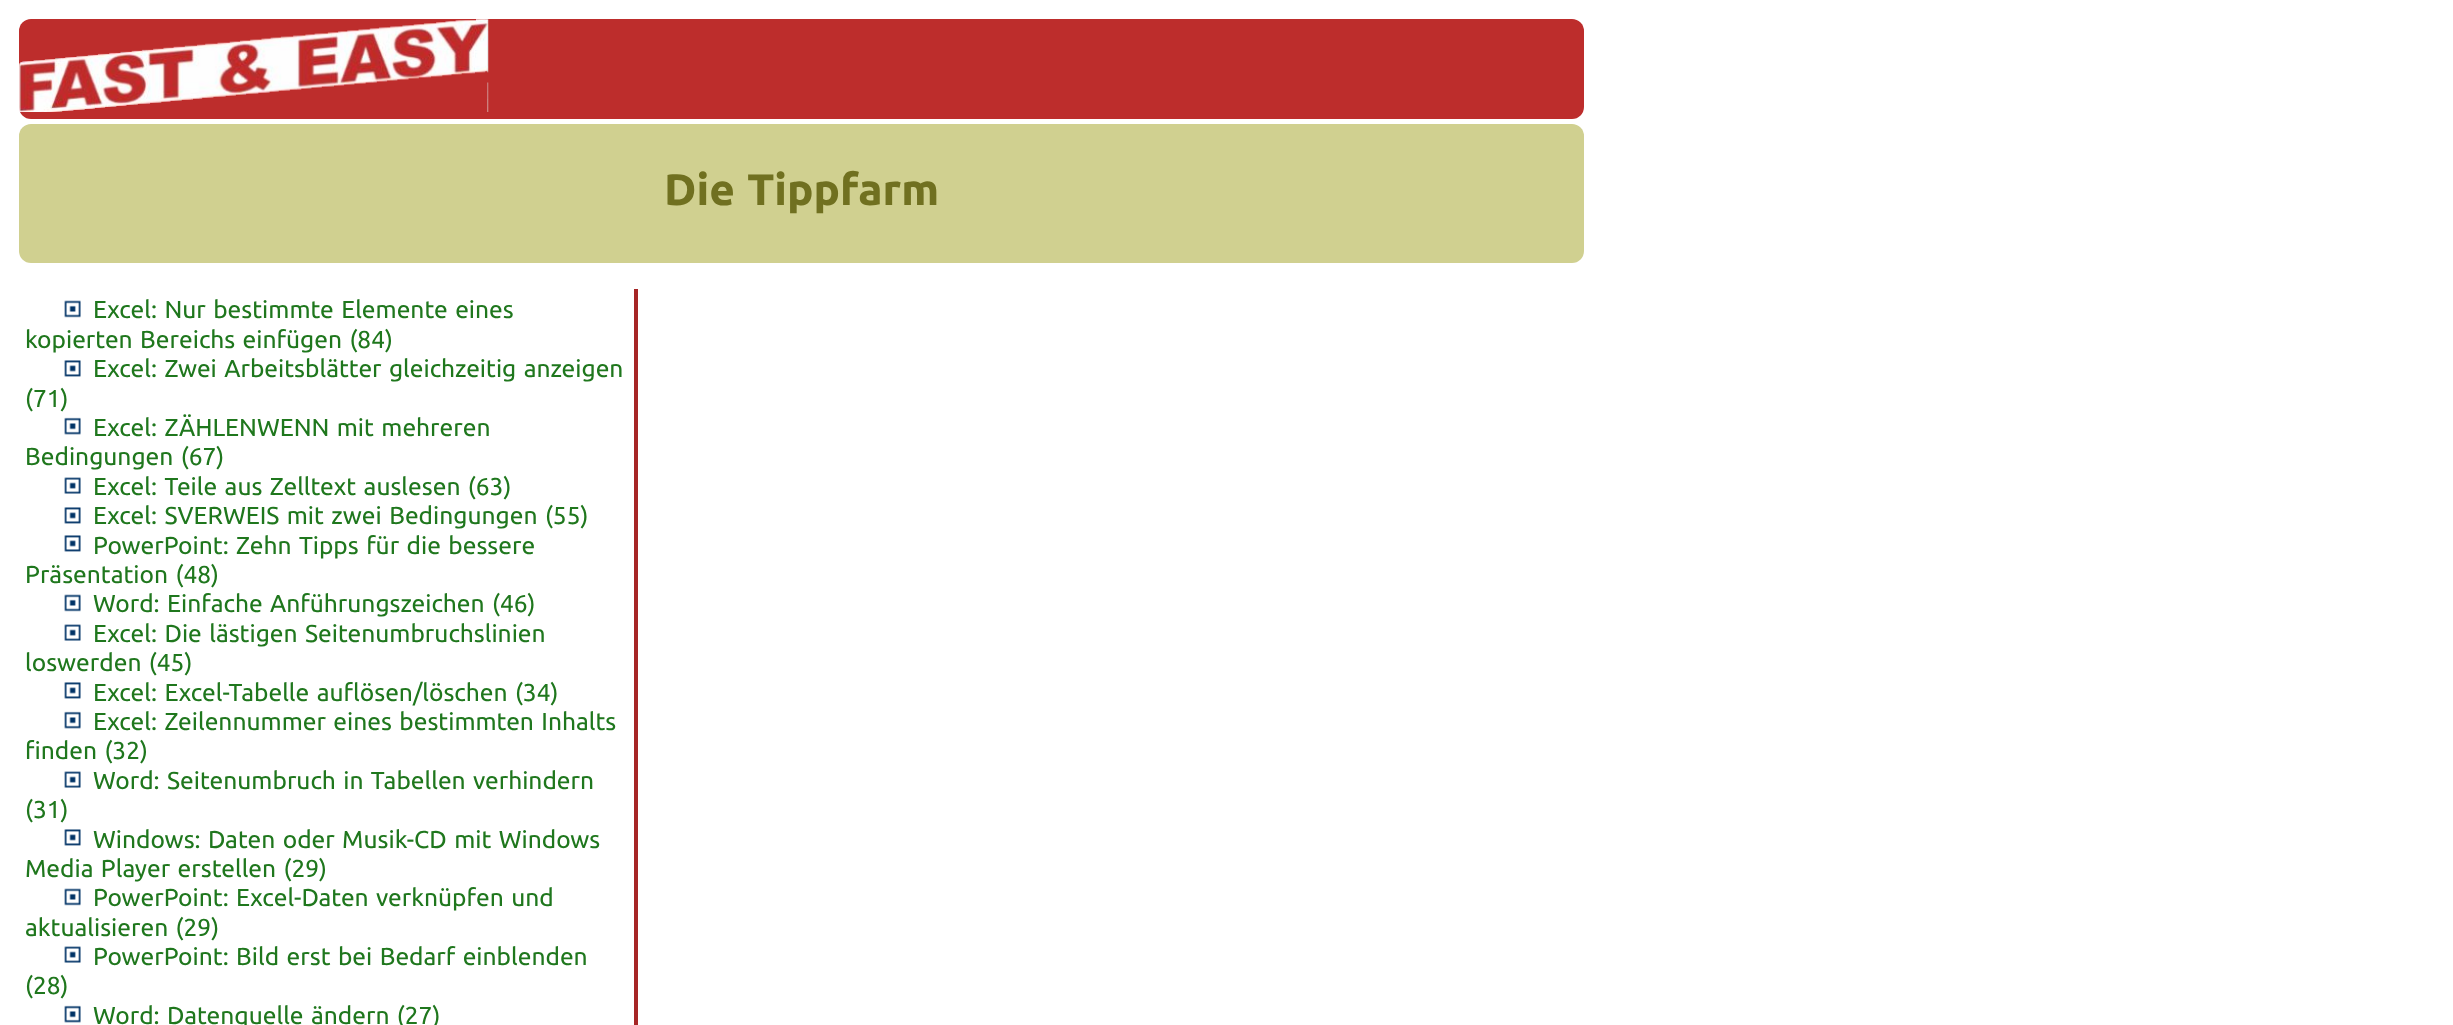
async function draw(canvas) {
  canvas.width = 2453
  canvas.height = 1025
  const ctx = canvas.getContext('2d')
  ctx.miterLimit = 4
  ctx.fontKerning = 'normal'
  async function loadImage(src) {
    const img = new Image()
    img.src = src
    await img.decode()
    return img
  }

  ctx.fillStyle = '#fff'
  ctx.fillRect(0, 0, 2453, 1025)
  ctx.fillStyle = '#bd2d2c'
  ctx.beginPath()
  ctx.roundRect(19, 19, 1565, 100, 12)
  ctx.fill()
  ctx.drawImage(await loadImage('image0.png'), 19, 19, 470, 93)
  ctx.fillStyle = '#d0d090'
  ctx.beginPath()
  ctx.roundRect(19, 124, 1565, 139, 12)
  ctx.fill()
  ctx.wordSpacing = '1.75px'
  ctx.font = 'bold 44px Ubuntu'
  ctx.fillStyle = '#707020'
  ctx.fillText('Die Tippfarm', 664, 205)
  ctx.fillStyle = '#a62626'
  ctx.fillRect(634, 289, 4, 736)
  ctx.drawImage(await loadImage('image1.png'), 64, 300, 17, 18)
  ctx.font = '24.5px Ubuntu'
  ctx.fillStyle = '#1f771d'
  ctx.fillText('Excel: Nur bestimmte Elemente eines', 93, 318)
  ctx.fillText('kopierten Bereichs einfügen (84)', 25, 348)
  ctx.drawImage(await loadImage('image2.png'), 64, 360, 17, 17)
  ctx.fillText('Excel: Zwei Arbeitsblätter gleichzeitig anzeigen', 93, 377)
  ctx.wordSpacing = '0px'
  ctx.fillText('(71)', 25, 407)
  ctx.drawImage(await loadImage('image3.png'), 64, 417, 17, 18)
  ctx.wordSpacing = '1.75px'
  ctx.fillText('Excel: ZÄHLENWENN mit mehreren', 93, 436)
  ctx.fillText('Bedingungen (67)', 25, 465)
  ctx.drawImage(await loadImage('image4.png'), 64, 477, 17, 17)
  ctx.fillText('Excel: Teile aus Zelltext auslesen (63)', 93, 495)
  ctx.drawImage(await loadImage('image2.png'), 64, 507, 17, 17)
  ctx.fillText('Excel: SVERWEIS mit zwei Bedingungen (55)', 93, 524)
  ctx.drawImage(await loadImage('image2.png'), 64, 535, 17, 17)
  ctx.fillText('PowerPoint: Zehn Tipps für die bessere', 93, 554)
  ctx.fillText('Präsentation (48)', 25, 583)
  ctx.drawImage(await loadImage('image1.png'), 64, 594, 17, 18)
  ctx.fillText('Word: Einfache Anführungszeichen (46)', 93, 612)
  ctx.drawImage(await loadImage('image4.png'), 64, 624, 17, 17)
  ctx.fillText('Excel: Die lästigen Seitenumbruchslinien', 93, 642)
  ctx.fillText('loswerden (45)', 25, 671)
  ctx.drawImage(await loadImage('image2.png'), 64, 682, 17, 17)
  ctx.fillText('Excel: Excel-Tabelle auflösen/löschen (34)', 93, 701)
  ctx.drawImage(await loadImage('image3.png'), 64, 711, 17, 18)
  ctx.fillText('Excel: Zeilennummer eines bestimmten Inhalts', 93, 730)
  ctx.fillText('finden (32)', 25, 759)
  ctx.drawImage(await loadImage('image4.png'), 64, 771, 17, 17)
  ctx.fillText('Word: Seitenumbruch in Tabellen verhindern', 93, 789)
  ctx.wordSpacing = '0px'
  ctx.fillText('(31)', 25, 818)
  ctx.drawImage(await loadImage('image2.png'), 64, 829, 17, 17)
  ctx.wordSpacing = '1.75px'
  ctx.fillText('Windows: Daten oder Musik-CD mit Windows', 93, 848)
  ctx.fillText('Media Player erstellen (29)', 25, 877)
  ctx.drawImage(await loadImage('image1.png'), 64, 888, 17, 18)
  ctx.fillText('PowerPoint: Excel-Daten verknüpfen und', 93, 906)
  ctx.fillText('aktualisieren (29)', 25, 936)
  ctx.drawImage(await loadImage('image4.png'), 64, 946, 17, 17)
  ctx.fillText('PowerPoint: Bild erst bei Bedarf einblenden', 93, 965)
  ctx.wordSpacing = '0px'
  ctx.fillText('(28)', 25, 994)
  ctx.drawImage(await loadImage('image3.png'), 64, 1005, 17, 18)
  ctx.wordSpacing = '1.75px'
  ctx.fillText('Word: Datenquelle ändern (27)', 93, 1024)
}

draw(document.querySelector('canvas'))
